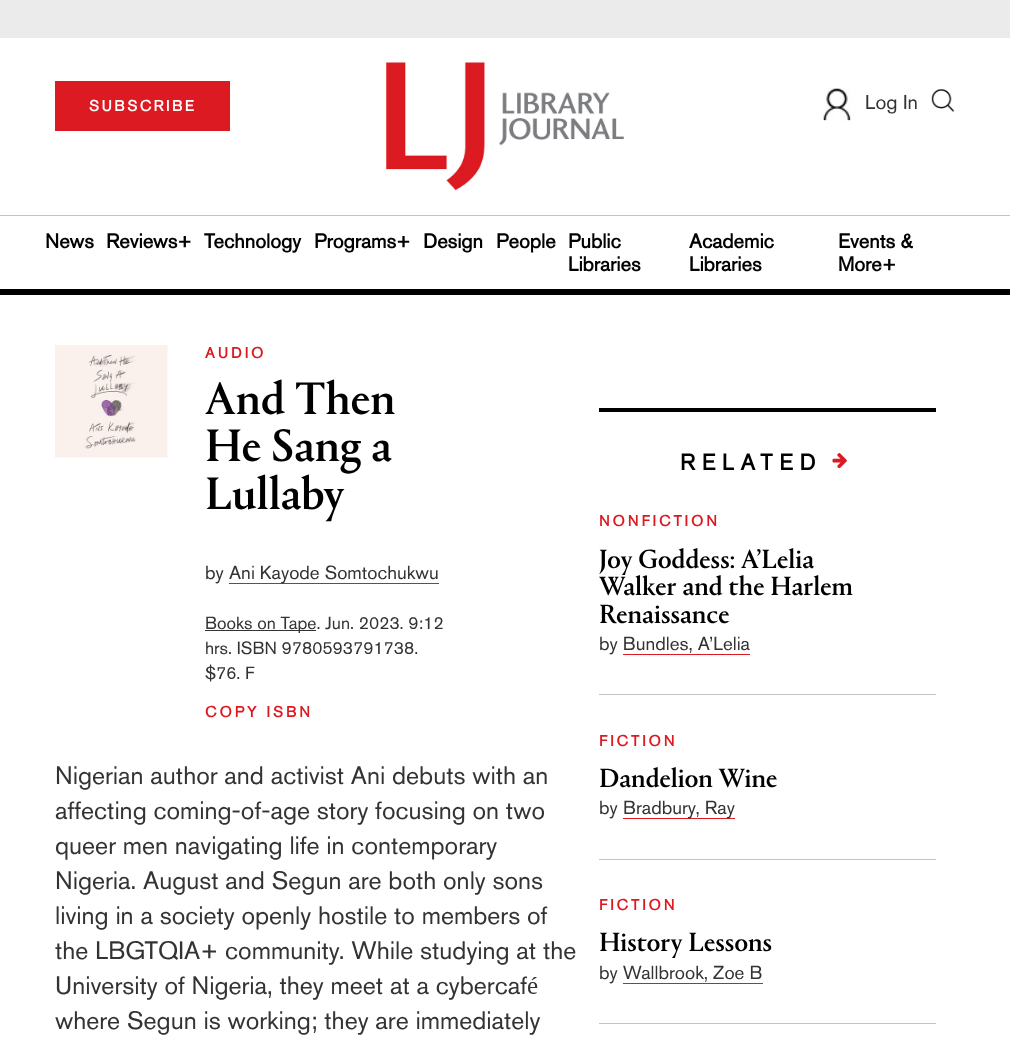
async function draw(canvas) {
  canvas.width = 1010
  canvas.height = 1045
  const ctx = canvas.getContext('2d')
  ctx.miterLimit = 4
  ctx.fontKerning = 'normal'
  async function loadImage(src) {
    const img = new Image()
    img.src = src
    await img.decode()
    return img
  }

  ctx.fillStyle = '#fff'
  ctx.fillRect(0, 0, 1010, 1045)
  ctx.fillStyle = '#ebebeb'
  ctx.fillRect(0, 0, 1010, 38)
  ctx.fillStyle = '#db1a21'
  ctx.fillRect(55, 81, 175, 50)
  ctx.letterSpacing = '2.5px'
  ctx.font = 'bold 15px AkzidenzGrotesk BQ'
  ctx.fillStyle = '#fff'
  ctx.fillText('SUBSCRIBE', 89, 111)
  ctx.drawImage(await loadImage('image0.png'), 386, 62, 238, 128)
  ctx.drawImage(await loadImage('image1.png'), 823, 88, 28, 33)
  ctx.letterSpacing = '0px'
  ctx.font = '500 20px AkzidenzGrotesk BQ'
  ctx.fillStyle = '#333'
  ctx.fillText('Log In', 865, 109)
  ctx.drawImage(await loadImage('image2.png'), 931, 89, 24, 23)
  ctx.fillStyle = '#c5c2c2'
  ctx.fillRect(0, 215, 1010, 1)
  ctx.font = 'bold 20px AkzidenzGrotesk BQ'
  ctx.fillStyle = '#000'
  ctx.fillText('News', 45, 248)
  ctx.fillText('Reviews+', 106, 248)
  ctx.fillText('Technology', 204, 248)
  ctx.fillText('Programs+', 314, 248)
  ctx.fillText('Design', 423, 248)
  ctx.fillText('People', 496, 248)
  ctx.fillText('Public', 568, 248)
  ctx.fillText('Libraries', 568, 271)
  ctx.fillText('Academic', 689, 248)
  ctx.fillText('Libraries', 689, 271)
  ctx.fillText('Events &', 838, 248)
  ctx.fillText('More+', 838, 271)
  ctx.fillRect(0, 289, 1010, 6)
  ctx.drawImage(await loadImage('image3.png'), 55, 345, 113, 113)
  ctx.letterSpacing = '3px'
  ctx.font = 'bold 15px AkzidenzGrotesk BQ'
  ctx.fillStyle = '#db1a21'
  ctx.fillText('AUDIO', 205, 358)
  ctx.letterSpacing = '0px'
  ctx.font = '500 47.5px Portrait'
  ctx.fillStyle = '#000'
  ctx.fillText('And Then', 205, 414)
  ctx.fillText('He Sang a', 205, 461)
  ctx.fillText('Lullaby', 205, 509)
  ctx.font = '500 18.75px AkzidenzGrotesk BQ'
  ctx.fillStyle = '#333'
  ctx.fillText('by', 205, 579)
  ctx.fillStyle = '#db1a21'
  ctx.fillRect(229, 583, 210, 1)
  ctx.fillStyle = '#333'
  ctx.fillText('Ani Kayode Somtochukwu', 229, 579)
  ctx.fillRect(205, 630, 111, 1)
  ctx.font = '500 17.5px AkzidenzGrotesk BQ'
  ctx.fillText('Books on Tape. Jun. 2023. 9:12', 205, 629)
  ctx.fillText('hrs. ISBN 9780593791738.', 205, 654)
  ctx.fillText('$76. F', 205, 679)
  ctx.letterSpacing = '3px'
  ctx.font = 'bold 15px AkzidenzGrotesk BQ'
  ctx.fillStyle = '#db1a21'
  ctx.fillText('COPY ISBN', 205, 717)
  ctx.letterSpacing = '0px'
  ctx.font = '500 25px AkzidenzGrotesk BQ'
  ctx.fillStyle = '#333'
  ctx.fillText('Nigerian author and activist Ani debuts with an', 55, 784)
  ctx.fillText('affecting coming-of-age story focusing on two', 55, 819)
  ctx.fillText('queer men navigating life in contemporary', 55, 854)
  ctx.fillText('Nigeria. August and Segun are both only sons', 55, 889)
  ctx.fillText('living in a society openly hostile to members of', 55, 924)
  ctx.fillText('the LBGTQIA+ community. While studying at the', 55, 959)
  ctx.fillText('University of Nigeria, they meet at a cybercafé', 55, 994)
  ctx.fillText('where Segun is working; they are immediately', 55, 1029)
  ctx.fillStyle = '#000'
  ctx.fillRect(599, 408, 337, 4)
  ctx.letterSpacing = '6.75px'
  ctx.font = 'bold 22.5px AkzidenzGrotesk BQ'
  ctx.fillText('RELATED', 680, 470)
  ctx.drawImage(await loadImage('image4.png'), 832, 453, 15, 16)
  ctx.letterSpacing = '3px'
  ctx.font = 'bold 15px AkzidenzGrotesk BQ'
  ctx.fillStyle = '#db1a21'
  ctx.fillText('NONFICTION', 599, 526)
  ctx.letterSpacing = '0px'
  ctx.font = '500 27.5px Portrait'
  ctx.fillStyle = '#000'
  ctx.fillText('Joy Goddess: A’Lelia', 599, 568)
  ctx.fillText('Walker and the Harlem', 599, 595)
  ctx.fillText('Renaissance', 599, 623)
  ctx.font = '500 18.75px AkzidenzGrotesk BQ'
  ctx.fillStyle = '#333'
  ctx.fillText('by Bundles, A’Lelia', 599, 650)
  ctx.fillStyle = '#db1a21'
  ctx.fillRect(623, 654, 127, 1)
  ctx.fillStyle = '#c5c2c2'
  ctx.fillRect(599, 694, 337, 1)
  ctx.letterSpacing = '3px'
  ctx.font = 'bold 15px AkzidenzGrotesk BQ'
  ctx.fillStyle = '#db1a21'
  ctx.fillText('FICTION', 599, 746)
  ctx.letterSpacing = '0px'
  ctx.font = '500 27.5px Portrait'
  ctx.fillStyle = '#000'
  ctx.fillText('Dandelion Wine', 599, 787)
  ctx.font = '500 18.75px AkzidenzGrotesk BQ'
  ctx.fillStyle = '#333'
  ctx.fillText('by', 599, 814)
  ctx.fillStyle = '#db1a21'
  ctx.fillRect(623, 818, 112, 1)
  ctx.fillStyle = '#333'
  ctx.fillText('Bradbury, Ray', 623, 814)
  ctx.fillStyle = '#c5c2c2'
  ctx.fillRect(599, 859, 337, 1)
  ctx.letterSpacing = '3px'
  ctx.font = 'bold 15px AkzidenzGrotesk BQ'
  ctx.fillStyle = '#db1a21'
  ctx.fillText('FICTION', 599, 910)
  ctx.letterSpacing = '0px'
  ctx.font = '500 27.5px Portrait'
  ctx.fillStyle = '#000'
  ctx.fillText('History Lessons', 599, 951)
  ctx.font = '500 18.75px AkzidenzGrotesk BQ'
  ctx.fillStyle = '#333'
  ctx.fillText('by Wallbrook, Zoe B', 599, 979)
  ctx.fillStyle = '#db1a21'
  ctx.fillRect(623, 983, 140, 1)
  ctx.fillStyle = '#c5c2c2'
  ctx.fillRect(599, 1023, 337, 1)
}

draw(document.querySelector('canvas'))
